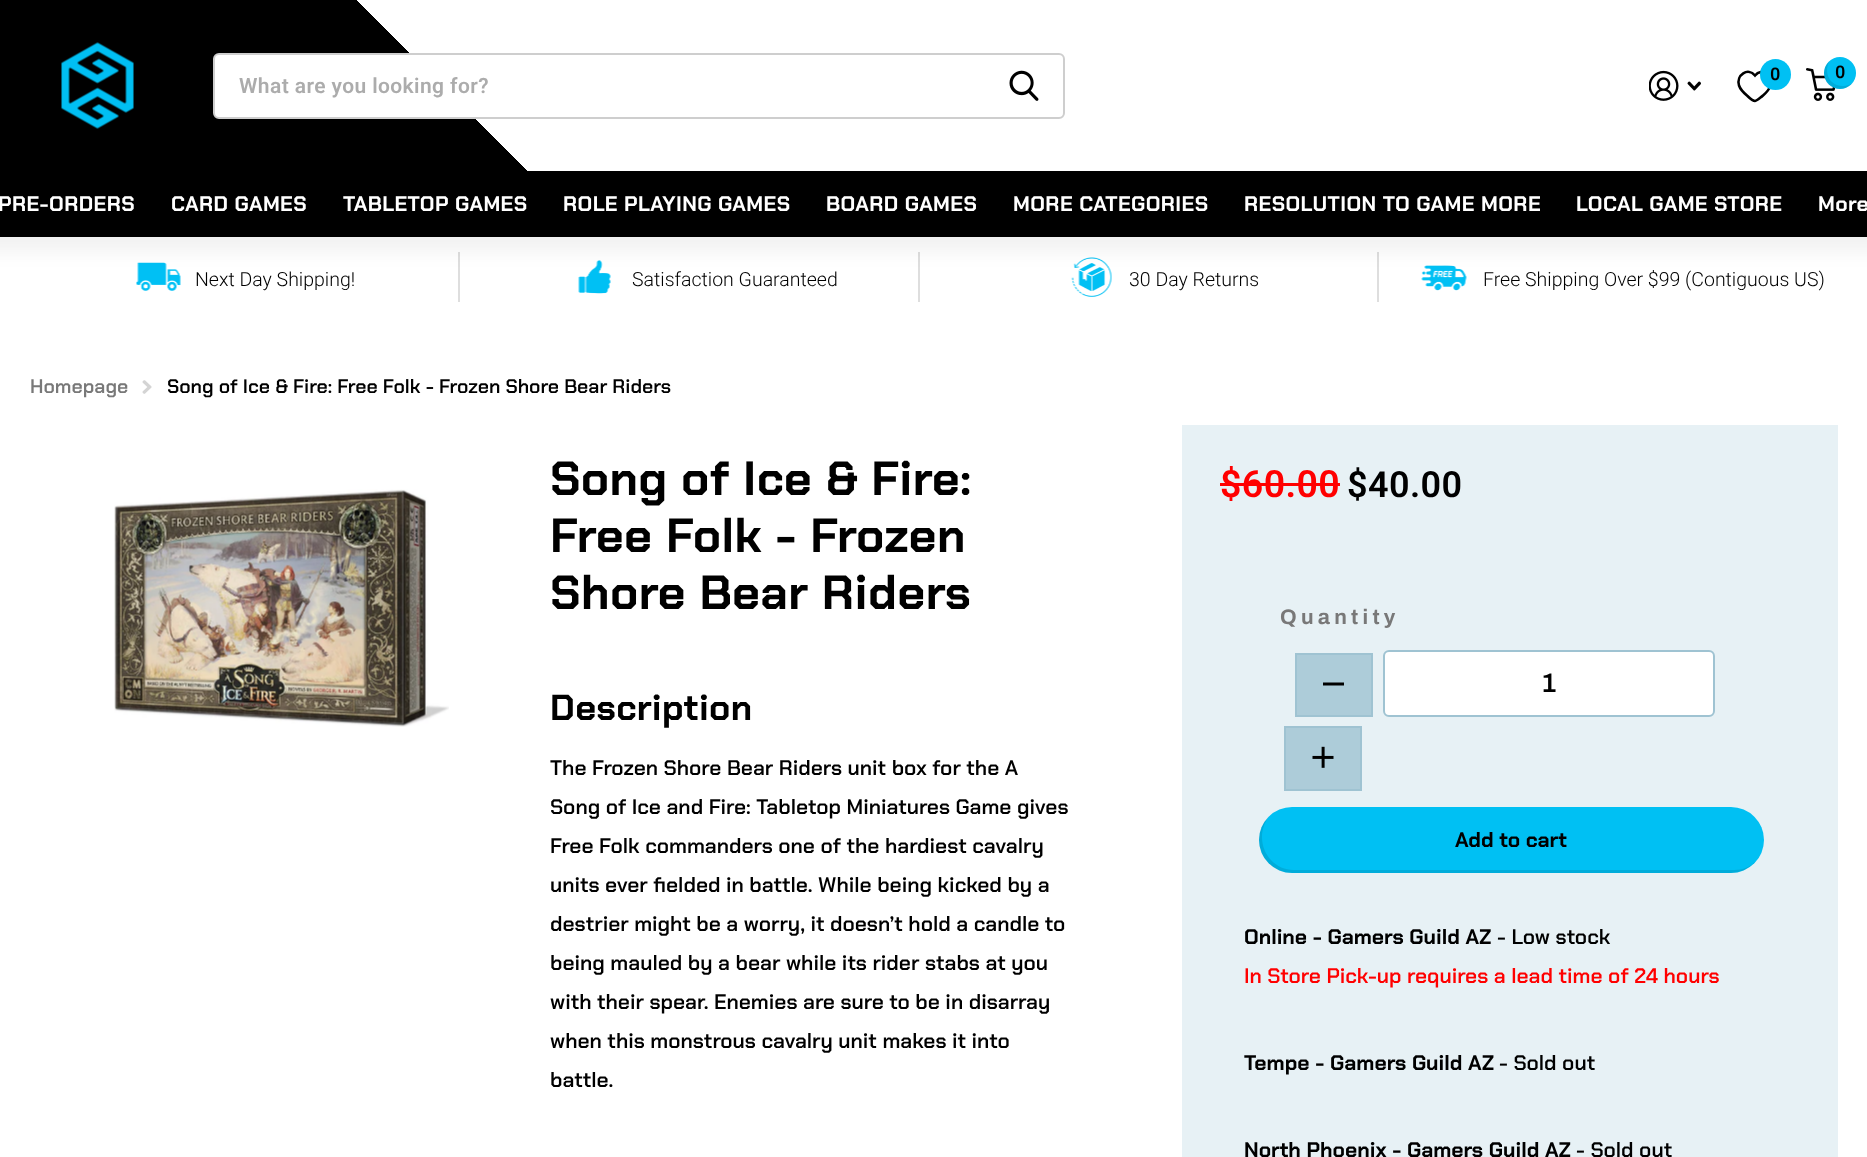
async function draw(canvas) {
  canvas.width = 1867
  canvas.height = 1157
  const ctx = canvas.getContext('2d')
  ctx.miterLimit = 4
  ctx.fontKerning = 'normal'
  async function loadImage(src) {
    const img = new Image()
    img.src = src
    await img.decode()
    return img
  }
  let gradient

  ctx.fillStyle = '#fff'
  ctx.fillRect(0, 0, 1867, 1157)
  gradient = ctx.createLinearGradient(361, 691, 1506, -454)
  gradient.addColorStop(0.3, '#000')
  gradient.addColorStop(0.3, '#fff')
  gradient.addColorStop(1, '#fff')
  ctx.fillStyle = gradient
  ctx.fillRect(0, 0, 528, 171)
  ctx.drawImage(await loadImage('image0.png'), 61, 42, 73, 87)
  ctx.drawImage(await loadImage('image1.png'), 1649, 70, 30, 31)
  ctx.drawImage(await loadImage('image2.png'), 1687, 81, 14, 10)
  ctx.beginPath()
  ctx.moveTo(1755, 101)
  ctx.bezierCurveTo(1753, 101, 1749, 97.5, 1747.5, 96)
  ctx.bezierCurveTo(1744.5, 93.5, 1740.5, 90, 1739, 85.5)
  ctx.bezierCurveTo(1736, 75, 1748, 67, 1755, 75.5)
  ctx.bezierCurveTo(1761.5, 67.5, 1773.5, 74.5, 1771, 84.5)
  ctx.bezierCurveTo(1769.5, 89.5, 1766, 93, 1762.5, 96)
  ctx.bezierCurveTo(1761.5, 96.5, 1756.5, 101, 1755, 101)
  ctx.closePath()
  ctx.strokeStyle = '#000'
  ctx.lineWidth = 2.6
  ctx.stroke()
  ctx.fillStyle = '#00c0f3'
  ctx.beginPath()
  ctx.arc(1775.5, 74.5, 15.5, 0, 2 * Math.PI)
  ctx.fill()
  ctx.font = '600 18px Archivo'
  ctx.fillStyle = '#000'
  ctx.fillText('0', 1770, 80)
  ctx.drawImage(await loadImage('image3.png'), 1806, 68, 30, 33)
  ctx.fillStyle = '#00c0f3'
  ctx.beginPath()
  ctx.arc(1840, 73, 16, 0, 2 * Math.PI)
  ctx.fill()
  ctx.fillStyle = '#0000001a'
  ctx.beginPath()
  ctx.moveTo(1853, 82.5)
  ctx.bezierCurveTo(1850.5, 84.5, 1847, 86, 1843, 86)
  ctx.bezierCurveTo(1828, 86, 1823.5, 70, 1830, 60.5)
  ctx.bezierCurveTo(1822.5, 66.5, 1822, 77.5, 1828.5, 84.5)
  ctx.bezierCurveTo(1835.5, 91, 1847.5, 90, 1853, 82.5)
  ctx.closePath()
  ctx.fill()
  ctx.fillStyle = '#000'
  ctx.fillText('0', 1835, 78)
  ctx.fillStyle = '#fff'
  ctx.beginPath()
  ctx.roundRect(214, 54, 850, 64, 5)
  ctx.fill()
  ctx.strokeStyle = '#cecece'
  ctx.lineWidth = 2
  ctx.stroke()
  ctx.letterSpacing = '0.4px'
  ctx.font = '600 21px Roboto'
  ctx.fillStyle = '#acacac'
  ctx.fillText('What are you looking for?', 239, 93)
  ctx.drawImage(await loadImage('image4.png'), 1009, 70, 30, 31)
  ctx.fillStyle = '#dedede'
  ctx.fillRect(458, 252, 2, 50)
  ctx.drawImage(await loadImage('image5.png'), 136, 262, 45, 29)
  ctx.fillRect(918, 252, 2, 50)
  ctx.drawImage(await loadImage('image6.png'), 578, 260, 33, 34)
  ctx.fillRect(1377, 252, 2, 50)
  ctx.drawImage(await loadImage('image7.png'), 1071, 257, 41, 40)
  ctx.drawImage(await loadImage('image8.png'), 1421, 265, 46, 26)
  ctx.fillStyle = '#0000000d'
  ctx.filter = 'blur(9px)'
  ctx.beginPath()
  ctx.rect(-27, 186, 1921, 66)
  ctx.fill()
  ctx.filter = 'none'
  ctx.fillStyle = '#000'
  ctx.fillRect(0, 171, 1867, 66)
  ctx.font = 'bold 21px Chakra Petch'
  ctx.fillStyle = '#fff'
  ctx.fillText('PRE-ORDERS', -2, 211)
  ctx.fillText('CARD GAMES', 171, 211)
  ctx.fillText('TABLETOP GAMES', 343, 211)
  ctx.fillText('ROLE PLAYING GAMES', 563, 211)
  ctx.fillText('BOARD GAMES', 826, 211)
  ctx.fillText('MORE CATEGORIES', 1013, 211)
  ctx.fillText('RESOLUTION TO GAME MORE', 1244, 211)
  ctx.fillText('LOCAL GAME STORE', 1576, 211)
  ctx.fillText('More', 1818, 211)
  ctx.letterSpacing = '0px'
  ctx.font = '300 19.5px Roboto'
  ctx.fillStyle = '#000'
  ctx.fillText('Next Day Shipping!', 195, 286)
  ctx.fillText('Satisfaction Guaranteed', 632, 286)
  ctx.fillText('30 Day Returns', 1129, 286)
  ctx.fillText('Free Shipping Over $99 (Contiguous US)', 1483, 286)
  ctx.font = '600 19.5px Chakra Petch'
  ctx.fillStyle = '#787878'
  ctx.fillText('Homepage', 30, 393)
  ctx.drawImage(await loadImage('image9.png'), 142, 380, 10, 14)
  ctx.fillStyle = '#000'
  ctx.fillText('Song of Ice & Fire: Free Folk - Frozen Shore Bear Riders', 167, 393)
  ctx.drawImage(await loadImage('image10.png'), 114, 489, 335, 238)
  ctx.letterSpacing = '0.4px'
  ctx.font = 'bold 48px Chakra Petch'
  ctx.fillText('Song of Ice & Fire:', 550, 495)
  ctx.fillText('Free Folk - Frozen', 550, 552)
  ctx.fillText('Shore Bear Riders', 550, 609)
  ctx.font = 'bold 36px Chakra Petch'
  ctx.fillText('Description', 550, 720)
  ctx.letterSpacing = '0px'
  ctx.font = '600 21px Chakra Petch'
  ctx.fillText('The Frozen Shore Bear Riders unit box for the A', 550, 775)
  ctx.fillText('Song of Ice and Fire: Tabletop Miniatures Game gives', 550, 814)
  ctx.fillText('Free Folk commanders one of the hardiest cavalry', 550, 853)
  ctx.fillText('units ever fielded in battle. While being kicked by a', 550, 892)
  ctx.fillText('destrier might be a worry, it doesn’t hold a candle to', 550, 931)
  ctx.fillText('being mauled by a bear while its rider stabs at you', 550, 970)
  ctx.fillText('with their spear. Enemies are sure to be in disarray', 550, 1009)
  ctx.fillText('when this monstrous cavalry unit makes it into', 550, 1048)
  ctx.fillText('battle.', 550, 1087)
  ctx.fillStyle = '#e7f1f5'
  ctx.fillRect(1182, 425, 656, 732)
  ctx.letterSpacing = '0.4px'
  ctx.font = '600 37.5px Roboto'
  ctx.fillStyle = '#f00'
  ctx.fillText('$60.00', 1220, 497)
  ctx.fillRect(1220, 483, 120, 3)
  ctx.font = '600 36px Roboto'
  ctx.fillStyle = '#000'
  ctx.fillText('$40.00', 1347, 497)
  ctx.letterSpacing = '4.25px'
  ctx.font = 'bold 21px Archivo'
  ctx.fillStyle = '#787878'
  ctx.fillText('Quantity', 1280, 624)
  ctx.fillStyle = '#adccd9'
  ctx.beginPath()
  ctx.rect(1296, 654, 76, 62)
  ctx.fill()
  ctx.strokeStyle = '#9fc3d2'
  ctx.stroke()
  ctx.fillStyle = '#000'
  ctx.beginPath()
  ctx.moveTo(1335, 682.5)
  ctx.lineTo(1323, 682.5)
  ctx.lineTo(1323, 685.5)
  ctx.lineTo(1344, 685.5)
  ctx.lineTo(1344, 682.5)
  ctx.closePath()
  ctx.fill()
  ctx.fillStyle = '#fff'
  ctx.beginPath()
  ctx.roundRect(1384, 651, 330, 65, 5)
  ctx.fill()
  ctx.stroke()
  ctx.letterSpacing = '0px'
  ctx.font = '600 27px Archivo'
  ctx.fillStyle = '#000'
  ctx.fillText('1', 1541, 692)
  ctx.fillStyle = '#adccd9'
  ctx.beginPath()
  ctx.rect(1285, 727, 76, 63)
  ctx.fill()
  ctx.stroke()
  ctx.drawImage(await loadImage('image11.png'), 1312, 746, 22, 22)
  ctx.fillStyle = '#00c0f3'
  ctx.beginPath()
  ctx.roundRect(1259, 807, 505, 66, 33)
  ctx.fill()
  ctx.fillStyle = '#0000001a'
  ctx.beginPath()
  ctx.moveTo(1269, 816)
  ctx.bezierCurveTo(1263, 822, 1259, 831, 1259, 840)
  ctx.bezierCurveTo(1259, 858, 1274, 873, 1292, 873)
  ctx.lineTo(1731, 873)
  ctx.bezierCurveTo(1741, 873, 1750, 868, 1756, 861)
  ctx.bezierCurveTo(1750, 867, 1743, 870, 1734, 870)
  ctx.lineTo(1294, 870)
  ctx.bezierCurveTo(1276, 870, 1262, 855, 1262, 837)
  ctx.bezierCurveTo(1262, 829, 1265, 822, 1269, 816)
  ctx.closePath()
  ctx.fill()
  ctx.font = 'bold 21px Chakra Petch'
  ctx.fillStyle = '#000'
  ctx.fillText('Add to cart', 1455, 847)
  ctx.fillText('Online - Gamers Guild AZ', 1244, 944)
  ctx.font = '600 21px Chakra Petch'
  ctx.fillText('- Low stock', 1497, 944)
  ctx.fillStyle = '#f00'
  ctx.fillText('In Store Pick-up requires a lead time of 24 hours', 1244, 983)
  ctx.font = 'bold 21px Chakra Petch'
  ctx.fillStyle = '#000'
  ctx.fillText('Tempe - Gamers Guild AZ', 1244, 1070)
  ctx.font = '600 21px Chakra Petch'
  ctx.fillText('- Sold out', 1499, 1070)
  ctx.font = 'bold 21px Chakra Petch'
  ctx.fillText('North Phoenix - Gamers Guild AZ', 1244, 1157)
  ctx.font = '600 21px Chakra Petch'
  ctx.fillText('- Sold out', 1576, 1157)
}

draw(document.querySelector('canvas'))
